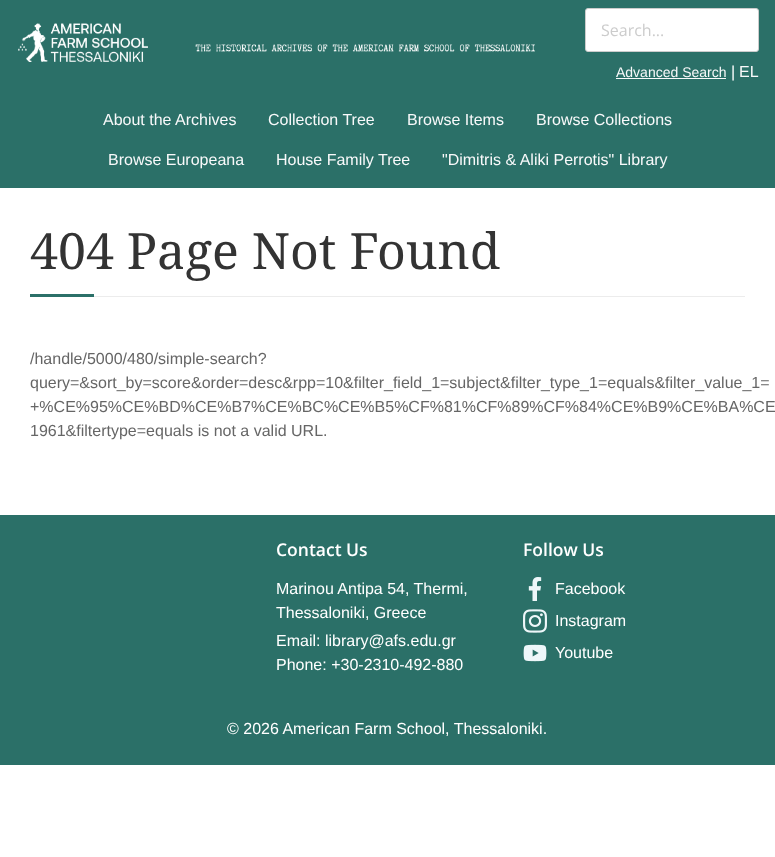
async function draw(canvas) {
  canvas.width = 775
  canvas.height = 857
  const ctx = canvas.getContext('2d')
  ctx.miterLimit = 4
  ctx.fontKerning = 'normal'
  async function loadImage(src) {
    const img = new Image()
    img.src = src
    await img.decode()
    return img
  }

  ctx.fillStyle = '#fff'
  ctx.fillRect(0, 0, 775, 857)
  ctx.fillStyle = '#2b7068'
  ctx.fillRect(0, 0, 775, 188)
  ctx.drawImage(await loadImage('image0.png'), 18, 23, 130, 39)
  ctx.drawImage(await loadImage('image1.png'), 195, 44, 340, 8)
  ctx.fillStyle = '#fff'
  ctx.beginPath()
  ctx.roundRect(585.5, 8.5, 173, 43, 2.5)
  ctx.fill()
  ctx.strokeStyle = '#ccc'
  ctx.stroke()
  ctx.font = '16px Open Sans'
  ctx.fillStyle = '#ccc'
  ctx.fillText('Search...', 601, 36)
  ctx.font = '14px Liberation Sans'
  ctx.fillStyle = '#f8f9fa'
  ctx.fillText('Advanced Search', 616, 77)
  ctx.fillRect(616, 78, 110, 1)
  ctx.font = '16px Liberation Sans'
  ctx.fillStyle = '#fff'
  ctx.fillText('|', 731, 77)
  ctx.fillStyle = '#f8f9fa'
  ctx.fillText('EL', 739, 77)
  ctx.fillText('About the Archives', 103, 125)
  ctx.fillText('Collection Tree', 268, 125)
  ctx.fillText('Browse Items', 407, 125)
  ctx.fillText('Browse Collections', 536, 125)
  ctx.fillText('Browse Europeana', 108, 165)
  ctx.fillText('House Family Tree', 276, 165)
  ctx.fillText('"Dimitris & Aliki Perrotis" Library', 442, 165)
  ctx.fillStyle = '#ececec'
  ctx.fillRect(94, 296, 651, 1)
  ctx.font = '50px Noto Serif'
  ctx.fillStyle = '#333'
  ctx.fillText('404 Page Not Found', 30, 269)
  ctx.fillStyle = '#2b7068'
  ctx.fillRect(30, 294, 64, 3)
  ctx.font = '16px Liberation Sans'
  ctx.fillStyle = '#666'
  ctx.fillText('/handle/5000/480/simple-search?', 30, 364)
  ctx.fillText('query=&sort_by=score&order=desc&rpp=10&filter_field_1=subject&filter_type_1=equals&filter_value_1=', 30, 388)
  ctx.fillText('+%CE%95%CE%BD%CE%B7%CE%BC%CE%B5%CF%81%CF%89%CF%84%CE%B9%CE%BA%CE', 30, 412)
  ctx.fillText('1961&filtertype=equals is not a valid URL.', 30, 436)
  ctx.fillStyle = '#2b7068'
  ctx.fillRect(0, 515, 775, 250)
  ctx.font = '600 17.5px Open Sans'
  ctx.fillStyle = '#fff'
  ctx.fillText('Contact Us', 276, 556)
  ctx.font = '16px Liberation Sans'
  ctx.fillText('Marinou Antipa 54, Thermi,', 276, 594)
  ctx.fillText('Thessaloniki, Greece', 276, 618)
  ctx.fillText('Email: library@afs.edu.gr', 276, 646)
  ctx.fillText('Phone: +30-2310-492-880', 276, 670)
  ctx.font = '600 17.5px Open Sans'
  ctx.fillText('Follow Us', 523, 556)
  ctx.drawImage(await loadImage('image2.png'), 528, 577, 14, 24)
  ctx.font = '16px Liberation Sans'
  ctx.fillText('Facebook', 555, 594)
  ctx.drawImage(await loadImage('image3.png'), 523, 609, 24, 24)
  ctx.fillText('Instagram', 555, 626)
  ctx.drawImage(await loadImage('image4.png'), 523, 644, 24, 18)
  ctx.fillText('Youtube', 555, 658)
  ctx.fillText('© 2026 American Farm School, Thessaloniki.', 227, 734)
}

draw(document.querySelector('canvas'))
